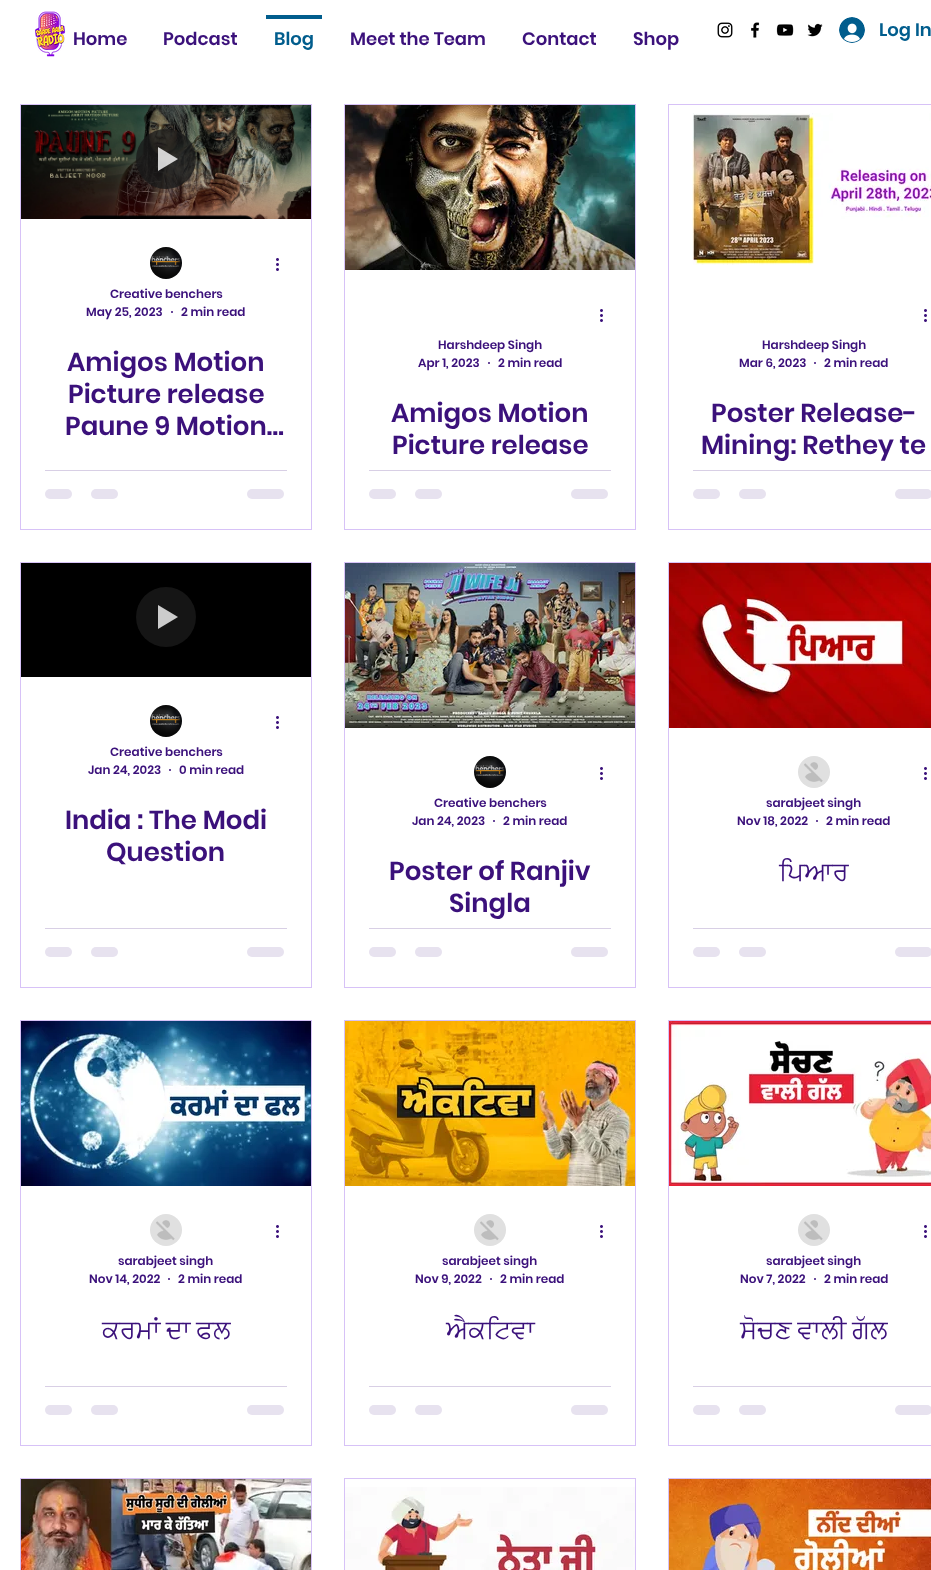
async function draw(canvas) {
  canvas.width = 931
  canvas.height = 1570
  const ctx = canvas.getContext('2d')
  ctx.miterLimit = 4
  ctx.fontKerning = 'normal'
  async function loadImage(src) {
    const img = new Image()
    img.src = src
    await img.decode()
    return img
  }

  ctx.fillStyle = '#fff'
  ctx.fillRect(0, 0, 931, 1570)
  ctx.drawImage(await loadImage('image0.png'), 35, 11, 31, 46)
  ctx.font = '600 18px Poppins'
  ctx.fillStyle = '#3b117b'
  ctx.fillText('Home', 73, 45)
  ctx.fillText('Podcast', 163, 45)
  ctx.fillStyle = '#015d8d'
  ctx.fillRect(266, 15, 56, 4)
  ctx.fillText('Blog', 274, 45)
  ctx.fillStyle = '#3b117b'
  ctx.fillText('Meet the Team', 350, 45)
  ctx.fillText('Contact', 522, 45)
  ctx.fillText('Shop', 633, 45)
  ctx.drawImage(await loadImage('image1.png'), 717, 22, 16, 16)
  ctx.drawImage(await loadImage('image2.png'), 751, 22, 9, 16)
  ctx.drawImage(await loadImage('image3.png'), 776, 24, 18, 12)
  ctx.drawImage(await loadImage('image4.png'), 807, 23, 16, 14)
  ctx.drawImage(await loadImage('image5.png'), 839, 17, 26, 26)
  ctx.fillStyle = '#015d8d'
  ctx.fillText('Log In', 879, 36)
  ctx.strokeStyle = '#d7c2f7'
  ctx.strokeRect(20.5, 104.5, 291, 425)
  ctx.drawImage(await loadImage('image6.png'), 21, 105, 290, 114)
  ctx.fillStyle = '#1a1a1acc'
  ctx.beginPath()
  ctx.arc(166, 159, 30, 0, 2 * Math.PI)
  ctx.fill()
  ctx.fillStyle = '#ffffffcc'
  ctx.beginPath()
  ctx.moveTo(158, 147)
  ctx.lineTo(158, 171)
  ctx.lineTo(178, 159)
  ctx.closePath()
  ctx.fill()
  ctx.drawImage(await loadImage('image7.png'), 276, 258, 3, 13)
  ctx.drawImage(await loadImage('image8.png'), 150, 247, 32, 32)
  ctx.font = '600 12px Poppins'
  ctx.fillStyle = '#3b117b'
  ctx.fillText('Creative benchers', 110, 298)
  ctx.fillText('May 25, 2023', 86, 316)
  ctx.beginPath()
  ctx.arc(172, 312, 1, 0, 2 * Math.PI)
  ctx.fill()
  ctx.fillText('2 min read', 181, 316)
  ctx.font = '600 26px Poppins'
  ctx.fillText('Amigos Motion', 67, 371)
  ctx.fillText('Picture release', 68, 403)
  ctx.fillText('Paune 9 Motion…', 65, 435)
  ctx.fillStyle = '#d8cfe5'
  ctx.fillRect(45, 470, 242, 1)
  ctx.fillStyle = '#e7e2ef'
  ctx.beginPath()
  ctx.roundRect(45, 489, 27, 10, 5)
  ctx.fill()
  ctx.beginPath()
  ctx.roundRect(91, 489, 27, 10, 5)
  ctx.fill()
  ctx.beginPath()
  ctx.roundRect(247, 489, 37, 10, 5)
  ctx.fill()
  ctx.strokeRect(344.5, 104.5, 291, 425)
  ctx.drawImage(await loadImage('image9.png'), 345, 105, 290, 165)
  ctx.drawImage(await loadImage('image7.png'), 600, 309, 3, 13)
  ctx.font = '600 12px Poppins'
  ctx.fillStyle = '#3b117b'
  ctx.fillText('Harshdeep Singh', 438, 349)
  ctx.fillText('Apr 1, 2023', 418, 367)
  ctx.beginPath()
  ctx.arc(489, 363, 1, 0, 2 * Math.PI)
  ctx.fill()
  ctx.fillText('2 min read', 498, 367)
  ctx.font = '600 26px Poppins'
  ctx.fillText('Amigos Motion', 391, 422)
  ctx.fillText('Picture release', 392, 454)
  ctx.fillStyle = '#d8cfe5'
  ctx.fillRect(369, 470, 242, 1)
  ctx.fillStyle = '#e7e2ef'
  ctx.beginPath()
  ctx.roundRect(369, 489, 27, 10, 5)
  ctx.fill()
  ctx.beginPath()
  ctx.roundRect(415, 489, 27, 10, 5)
  ctx.fill()
  ctx.beginPath()
  ctx.roundRect(571, 489, 37, 10, 5)
  ctx.fill()
  ctx.strokeRect(668.5, 104.5, 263, 425)
  ctx.drawImage(await loadImage('image10.png'), 692, 113, 239, 152)
  ctx.drawImage(await loadImage('image7.png'), 924, 309, 3, 13)
  ctx.font = '600 12px Poppins'
  ctx.fillStyle = '#3b117b'
  ctx.fillText('Harshdeep Singh', 762, 349)
  ctx.fillText('Mar 6, 2023', 739, 367)
  ctx.beginPath()
  ctx.arc(815, 363, 1, 0, 2 * Math.PI)
  ctx.fill()
  ctx.fillText('2 min read', 824, 367)
  ctx.font = '600 26px Poppins'
  ctx.fillText('Poster Release-', 711, 422)
  ctx.fillText('Mining: Rethey te', 701, 454)
  ctx.fillStyle = '#d8cfe5'
  ctx.fillRect(693, 470, 238, 1)
  ctx.fillStyle = '#e7e2ef'
  ctx.beginPath()
  ctx.roundRect(693, 489, 27, 10, 5)
  ctx.fill()
  ctx.beginPath()
  ctx.roundRect(739, 489, 27, 10, 5)
  ctx.fill()
  ctx.beginPath()
  ctx.roundRect(895, 489, 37, 10, 5)
  ctx.fill()
  ctx.strokeRect(20.5, 562.5, 291, 425)
  ctx.fillStyle = '#000'
  ctx.fillRect(21, 563, 290, 114)
  ctx.fillStyle = '#151515'
  ctx.beginPath()
  ctx.arc(166, 617, 30, 0, 2 * Math.PI)
  ctx.fill()
  ctx.fillStyle = '#ccc'
  ctx.beginPath()
  ctx.moveTo(158, 605)
  ctx.lineTo(158, 629)
  ctx.lineTo(178, 617)
  ctx.closePath()
  ctx.fill()
  ctx.drawImage(await loadImage('image7.png'), 276, 716, 3, 13)
  ctx.drawImage(await loadImage('image8.png'), 150, 705, 32, 32)
  ctx.font = '600 12px Poppins'
  ctx.fillStyle = '#3b117b'
  ctx.fillText('Creative benchers', 110, 756)
  ctx.fillText('Jan 24, 2023', 88, 774)
  ctx.beginPath()
  ctx.arc(170, 770, 1, 0, 2 * Math.PI)
  ctx.fill()
  ctx.fillText('0 min read', 179, 774)
  ctx.font = '600 26px Poppins'
  ctx.fillText('India : The Modi', 65, 829)
  ctx.fillText('Question', 106, 861)
  ctx.fillStyle = '#d8cfe5'
  ctx.fillRect(45, 928, 242, 1)
  ctx.fillStyle = '#e7e2ef'
  ctx.beginPath()
  ctx.roundRect(45, 947, 27, 10, 5)
  ctx.fill()
  ctx.beginPath()
  ctx.roundRect(91, 947, 27, 10, 5)
  ctx.fill()
  ctx.beginPath()
  ctx.roundRect(247, 947, 37, 10, 5)
  ctx.fill()
  ctx.strokeRect(344.5, 562.5, 291, 425)
  ctx.drawImage(await loadImage('image11.png'), 345, 563, 290, 165)
  ctx.drawImage(await loadImage('image7.png'), 600, 767, 3, 13)
  ctx.drawImage(await loadImage('image8.png'), 474, 756, 32, 32)
  ctx.font = '600 12px Poppins'
  ctx.fillStyle = '#3b117b'
  ctx.fillText('Creative benchers', 434, 807)
  ctx.fillText('Jan 24, 2023', 412, 825)
  ctx.beginPath()
  ctx.arc(494, 821, 1, 0, 2 * Math.PI)
  ctx.fill()
  ctx.fillText('2 min read', 503, 825)
  ctx.font = '600 26px Poppins'
  ctx.fillText('Poster of Ranjiv', 389, 880)
  ctx.fillText('Singla', 449, 912)
  ctx.fillStyle = '#d8cfe5'
  ctx.fillRect(369, 928, 242, 1)
  ctx.fillStyle = '#e7e2ef'
  ctx.beginPath()
  ctx.roundRect(369, 947, 27, 10, 5)
  ctx.fill()
  ctx.beginPath()
  ctx.roundRect(415, 947, 27, 10, 5)
  ctx.fill()
  ctx.beginPath()
  ctx.roundRect(571, 947, 37, 10, 5)
  ctx.fill()
  ctx.strokeRect(668.5, 562.5, 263, 425)
  ctx.drawImage(await loadImage('image12.png'), 669, 563, 262, 165)
  ctx.drawImage(await loadImage('image7.png'), 924, 767, 3, 13)
  ctx.drawImage(await loadImage('image13.png'), 798, 756, 32, 32)
  ctx.font = '600 12px Poppins'
  ctx.fillStyle = '#3b117b'
  ctx.fillText('sarabjeet singh', 766, 807)
  ctx.fillText('Nov 18, 2022', 737, 825)
  ctx.beginPath()
  ctx.arc(817, 821, 1, 0, 2 * Math.PI)
  ctx.fill()
  ctx.fillText('2 min read', 826, 825)
  ctx.font = '26px FreeSans'
  ctx.fillText('ਪਿਆਰ', 779, 880)
  ctx.fillStyle = '#d8cfe5'
  ctx.fillRect(693, 928, 238, 1)
  ctx.fillStyle = '#e7e2ef'
  ctx.beginPath()
  ctx.roundRect(693, 947, 27, 10, 5)
  ctx.fill()
  ctx.beginPath()
  ctx.roundRect(739, 947, 27, 10, 5)
  ctx.fill()
  ctx.beginPath()
  ctx.roundRect(895, 947, 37, 10, 5)
  ctx.fill()
  ctx.strokeRect(20.5, 1020.5, 291, 425)
  ctx.drawImage(await loadImage('image14.png'), 21, 1021, 290, 165)
  ctx.drawImage(await loadImage('image7.png'), 276, 1225, 3, 13)
  ctx.drawImage(await loadImage('image13.png'), 150, 1214, 32, 32)
  ctx.font = '600 12px Poppins'
  ctx.fillStyle = '#3b117b'
  ctx.fillText('sarabjeet singh', 118, 1265)
  ctx.fillText('Nov 14, 2022', 89, 1283)
  ctx.beginPath()
  ctx.arc(169, 1279, 1, 0, 2 * Math.PI)
  ctx.fill()
  ctx.fillText('2 min read', 178, 1283)
  ctx.wordSpacing = '-1px'
  ctx.font = '26px FreeSans'
  ctx.fillText('ਕਰਮਾਂ ਦਾ ਫਲ', 102, 1338)
  ctx.fillStyle = '#d8cfe5'
  ctx.fillRect(45, 1386, 242, 1)
  ctx.fillStyle = '#e7e2ef'
  ctx.beginPath()
  ctx.roundRect(45, 1405, 27, 10, 5)
  ctx.fill()
  ctx.beginPath()
  ctx.roundRect(91, 1405, 27, 10, 5)
  ctx.fill()
  ctx.beginPath()
  ctx.roundRect(247, 1405, 37, 10, 5)
  ctx.fill()
  ctx.strokeRect(344.5, 1020.5, 291, 425)
  ctx.drawImage(await loadImage('image15.png'), 345, 1021, 290, 165)
  ctx.drawImage(await loadImage('image7.png'), 600, 1225, 3, 13)
  ctx.drawImage(await loadImage('image13.png'), 474, 1214, 32, 32)
  ctx.wordSpacing = '0px'
  ctx.font = '600 12px Poppins'
  ctx.fillStyle = '#3b117b'
  ctx.fillText('sarabjeet singh', 442, 1265)
  ctx.fillText('Nov 9, 2022', 415, 1283)
  ctx.beginPath()
  ctx.arc(491, 1279, 1, 0, 2 * Math.PI)
  ctx.fill()
  ctx.fillText('2 min read', 500, 1283)
  ctx.font = '26px FreeSans'
  ctx.fillText('ਐਕਟਿਵਾ', 446, 1338)
  ctx.fillStyle = '#d8cfe5'
  ctx.fillRect(369, 1386, 242, 1)
  ctx.fillStyle = '#e7e2ef'
  ctx.beginPath()
  ctx.roundRect(369, 1405, 27, 10, 5)
  ctx.fill()
  ctx.beginPath()
  ctx.roundRect(415, 1405, 27, 10, 5)
  ctx.fill()
  ctx.beginPath()
  ctx.roundRect(571, 1405, 37, 10, 5)
  ctx.fill()
  ctx.strokeRect(668.5, 1020.5, 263, 425)
  ctx.drawImage(await loadImage('image16.png'), 669, 1021, 262, 165)
  ctx.drawImage(await loadImage('image7.png'), 924, 1225, 3, 13)
  ctx.drawImage(await loadImage('image13.png'), 798, 1214, 32, 32)
  ctx.font = '600 12px Poppins'
  ctx.fillStyle = '#3b117b'
  ctx.fillText('sarabjeet singh', 766, 1265)
  ctx.fillText('Nov 7, 2022', 740, 1283)
  ctx.beginPath()
  ctx.arc(815, 1279, 1, 0, 2 * Math.PI)
  ctx.fill()
  ctx.fillText('2 min read', 824, 1283)
  ctx.wordSpacing = '-1px'
  ctx.font = '26px FreeSans'
  ctx.fillText('ਸੋਚਣ ਵਾਲੀ ਗੱਲ', 740, 1338)
  ctx.fillStyle = '#d8cfe5'
  ctx.fillRect(693, 1386, 238, 1)
  ctx.fillStyle = '#e7e2ef'
  ctx.beginPath()
  ctx.roundRect(693, 1405, 27, 10, 5)
  ctx.fill()
  ctx.beginPath()
  ctx.roundRect(739, 1405, 27, 10, 5)
  ctx.fill()
  ctx.beginPath()
  ctx.roundRect(895, 1405, 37, 10, 5)
  ctx.fill()
  ctx.strokeRect(20.5, 1478.5, 291, 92)
  ctx.drawImage(await loadImage('image17.png'), 21, 1479, 290, 91)
  ctx.strokeRect(344.5, 1478.5, 291, 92)
  ctx.drawImage(await loadImage('image18.png'), 345, 1487, 290, 83)
  ctx.strokeRect(668.5, 1478.5, 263, 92)
  ctx.drawImage(await loadImage('image19.png'), 669, 1479, 262, 91)
}

draw(document.querySelector('canvas'))
